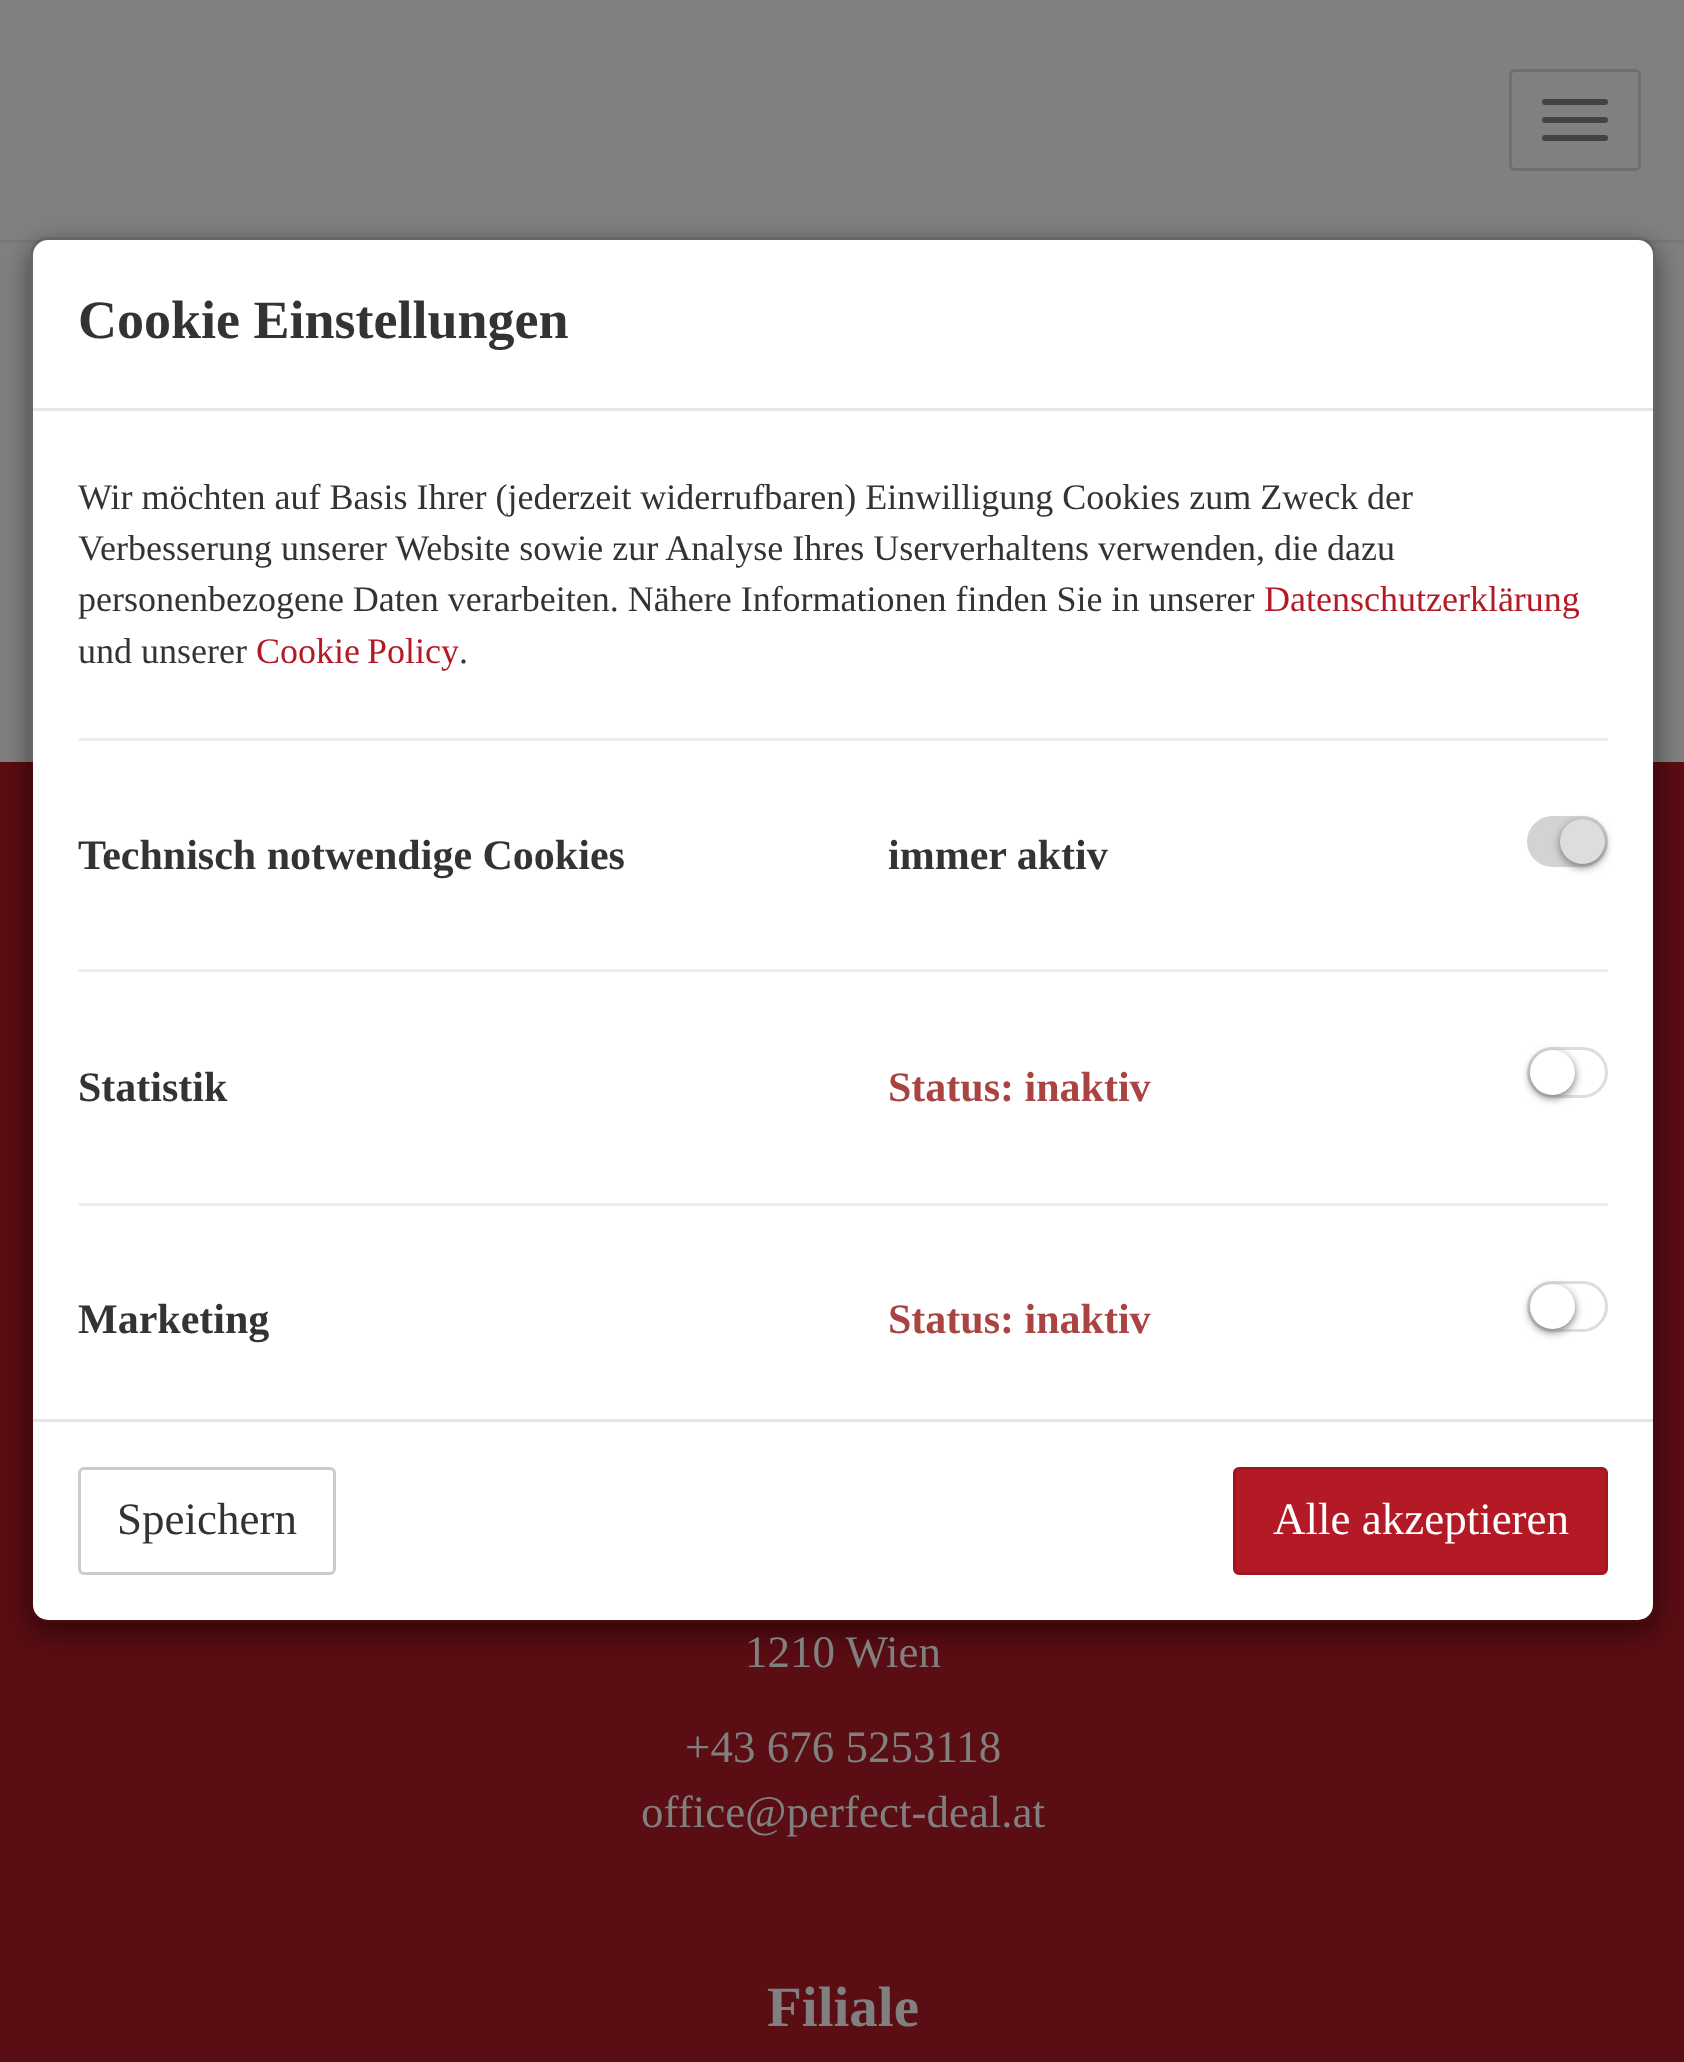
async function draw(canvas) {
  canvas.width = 1684
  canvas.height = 2062
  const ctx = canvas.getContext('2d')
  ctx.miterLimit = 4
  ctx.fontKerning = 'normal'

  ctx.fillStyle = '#808080'
  ctx.fillRect(0, 0, 1684, 2062)
  ctx.fillStyle = '#797979'
  ctx.fillRect(0, 240, 1684, 3)
  ctx.beginPath()
  ctx.roundRect(1510.5, 70.5, 129, 99, 4.5)
  ctx.strokeStyle = '#6f6f6f'
  ctx.lineWidth = 3
  ctx.stroke()
  ctx.fillStyle = '#444'
  ctx.beginPath()
  ctx.roundRect(1542, 99, 66, 6, 3)
  ctx.fill()
  ctx.beginPath()
  ctx.roundRect(1542, 117, 66, 6, 3)
  ctx.fill()
  ctx.beginPath()
  ctx.roundRect(1542, 135, 66, 6, 3)
  ctx.fill()
  ctx.fillStyle = '#5a0d13'
  ctx.fillRect(0, 762, 1684, 1300)
  ctx.save()
  ctx.beginPath()
  ctx.moveTo(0, 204)
  ctx.lineTo(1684, 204)
  ctx.lineTo(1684, 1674)
  ctx.lineTo(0, 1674)
  ctx.closePath()
  ctx.moveTo(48, 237)
  ctx.lineTo(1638, 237)
  ctx.bezierCurveTo(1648, 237, 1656, 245, 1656, 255)
  ctx.lineTo(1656, 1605)
  ctx.bezierCurveTo(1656, 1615, 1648, 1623, 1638, 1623)
  ctx.lineTo(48, 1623)
  ctx.bezierCurveTo(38, 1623, 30, 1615, 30, 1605)
  ctx.lineTo(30, 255)
  ctx.bezierCurveTo(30, 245, 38, 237, 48, 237)
  ctx.closePath()
  ctx.clip('evenodd')
  ctx.fillStyle = '#00000080'
  ctx.filter = 'blur(13.5px)'
  ctx.beginPath()
  ctx.roundRect(30, 246, 1626, 1386, 18)
  ctx.fill()
  ctx.filter = 'none'
  ctx.restore()
  ctx.fillStyle = '#fff'
  ctx.beginPath()
  ctx.roundRect(33, 240, 1620, 1380, 15)
  ctx.fill()
  ctx.beginPath()
  ctx.roundRect(31.5, 238.5, 1623, 1383, 16.5)
  ctx.strokeStyle = '#00000033'
  ctx.stroke()
  ctx.fillStyle = '#e5e5e5'
  ctx.fillRect(33, 408, 1620, 3)
  ctx.font = 'bold 54px Liberation Serif'
  ctx.fillStyle = '#333'
  ctx.fillText('Cookie Einstellungen', 78, 338)
  ctx.font = '36px Liberation Serif'
  ctx.fillText('Wir möchten auf Basis Ihrer (jederzeit widerrufbaren) Einwilligung Cookies zum Zweck der', 78, 509)
  ctx.fillText('Verbesserung unserer Website sowie zur Analyse Ihres Userverhaltens verwenden, die dazu', 78, 560)
  ctx.fillText('personenbezogene Daten verarbeiten. Nähere Informationen finden Sie in unserer', 78, 611)
  ctx.fillStyle = '#b41a26'
  ctx.fillText('Datenschutzerklärung', 1264, 611)
  ctx.fillStyle = '#333'
  ctx.fillText('und unserer', 78, 663)
  ctx.wordSpacing = '-2px'
  ctx.fillStyle = '#b41a26'
  ctx.fillText('Cookie Policy', 256, 663)
  ctx.wordSpacing = '0px'
  ctx.fillStyle = '#333'
  ctx.fillText('.', 459, 663)
  ctx.fillStyle = '#eee'
  ctx.fillRect(78, 738, 1530, 3)
  ctx.font = 'bold 42px Liberation Serif'
  ctx.fillStyle = '#333'
  ctx.fillText('Technisch notwendige Cookies', 78, 869)
  ctx.fillText('immer aktiv', 888, 869)
  ctx.fillStyle = '#d3d3d3'
  ctx.beginPath()
  ctx.roundRect(1528.5, 817.5, 78, 48, 24)
  ctx.fill()
  ctx.strokeStyle = '#d3d3d3'
  ctx.stroke()
  ctx.fillStyle = '#777'
  ctx.filter = 'blur(4.5px)'
  ctx.beginPath()
  ctx.roundRect(1560, 822, 45, 45, 22.5)
  ctx.fill()
  ctx.filter = 'none'
  ctx.fillStyle = '#ddd'
  ctx.beginPath()
  ctx.arc(1582.5, 841.5, 22.5, 0, 2 * Math.PI)
  ctx.fill()
  ctx.fillStyle = '#eee'
  ctx.fillRect(78, 969, 1530, 3)
  ctx.fillStyle = '#333'
  ctx.fillText('Statistik', 78, 1101)
  ctx.fillStyle = '#a94442'
  ctx.fillText('Status: inaktiv', 888, 1101)
  ctx.beginPath()
  ctx.roundRect(1528.5, 1048.5, 78, 48, 24)
  ctx.strokeStyle = '#ddd'
  ctx.stroke()
  ctx.fillStyle = '#777'
  ctx.filter = 'blur(4.5px)'
  ctx.beginPath()
  ctx.roundRect(1530, 1053, 45, 45, 22.5)
  ctx.fill()
  ctx.filter = 'none'
  ctx.fillStyle = '#fff'
  ctx.beginPath()
  ctx.arc(1552.5, 1072.5, 22.5, 0, 2 * Math.PI)
  ctx.fill()
  ctx.fillStyle = '#eee'
  ctx.fillRect(78, 1203, 1530, 3)
  ctx.fillStyle = '#333'
  ctx.fillText('Marketing', 78, 1333)
  ctx.fillStyle = '#a94442'
  ctx.fillText('Status: inaktiv', 888, 1333)
  ctx.beginPath()
  ctx.roundRect(1528.5, 1282.5, 78, 48, 24)
  ctx.stroke()
  ctx.fillStyle = '#777'
  ctx.filter = 'blur(4.5px)'
  ctx.beginPath()
  ctx.roundRect(1530, 1287, 45, 45, 22.5)
  ctx.fill()
  ctx.filter = 'none'
  ctx.fillStyle = '#fff'
  ctx.beginPath()
  ctx.arc(1552.5, 1306.5, 22.5, 0, 2 * Math.PI)
  ctx.fill()
  ctx.fillStyle = '#e5e5e5'
  ctx.fillRect(33, 1419, 1620, 3)
  ctx.beginPath()
  ctx.roundRect(79.5, 1468.5, 255, 105, 4.5)
  ctx.strokeStyle = '#ccc'
  ctx.stroke()
  ctx.font = '45px Liberation Serif'
  ctx.fillStyle = '#333'
  ctx.fillText('Speichern', 117, 1534)
  ctx.fillStyle = '#b41a26'
  ctx.beginPath()
  ctx.roundRect(1234.5, 1468.5, 372, 105, 4.5)
  ctx.fill()
  ctx.strokeStyle = '#9e1721'
  ctx.stroke()
  ctx.fillStyle = '#fff'
  ctx.fillText('Alle akzeptieren', 1273, 1534)
  ctx.fillStyle = '#808080'
  ctx.fillText('1210 Wien', 745, 1667)
  ctx.fillText('+43 676 5253118', 685, 1762)
  ctx.fillText('office@perfect-deal.at', 641, 1827)
  ctx.font = 'bold 57px Liberation Serif'
  ctx.fillText('Filiale', 767, 2026)
}

draw(document.querySelector('canvas'))
